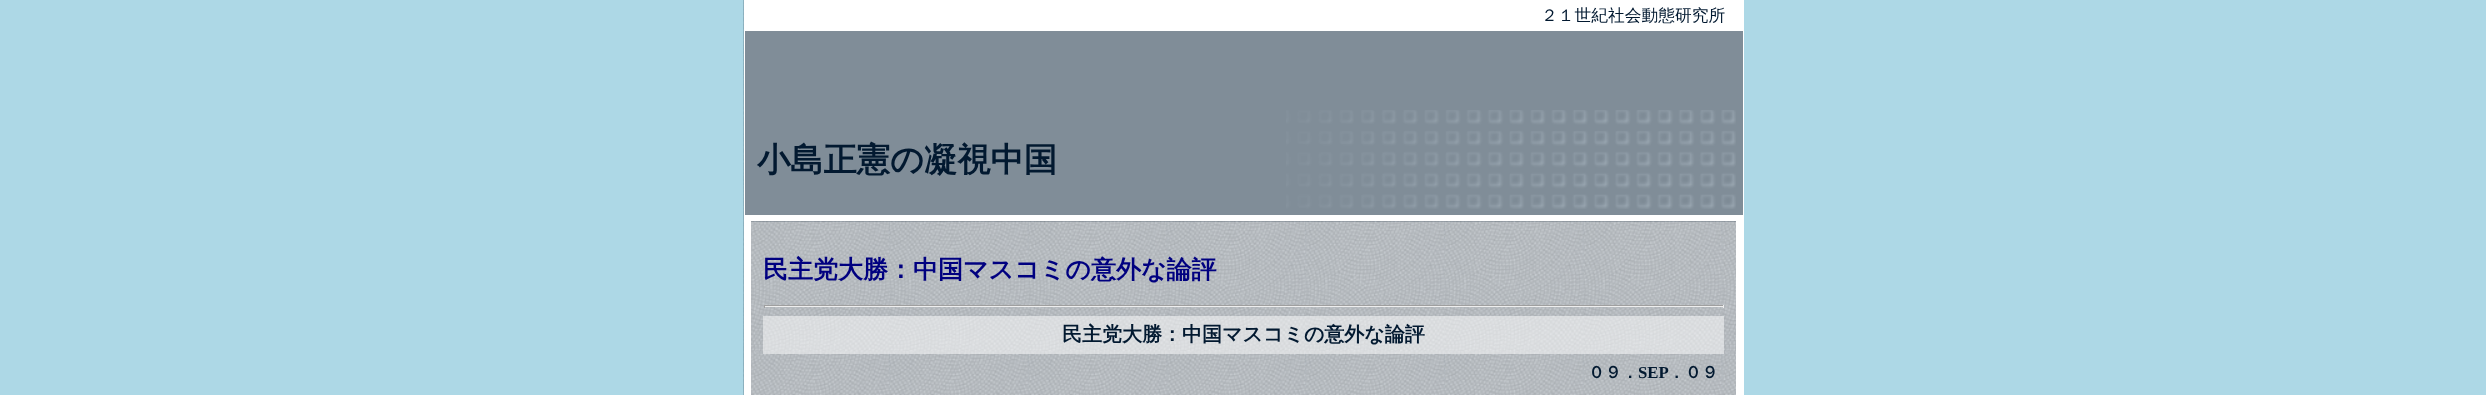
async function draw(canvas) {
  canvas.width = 2486
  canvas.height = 395
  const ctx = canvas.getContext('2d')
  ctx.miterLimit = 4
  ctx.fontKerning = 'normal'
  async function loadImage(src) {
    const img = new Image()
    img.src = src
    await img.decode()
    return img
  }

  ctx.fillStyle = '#add8e6'
  ctx.fillRect(0, 0, 2486, 395)
  ctx.drawImage(await loadImage('image0.png'), 743, 0, 993, 395)
  ctx.fillStyle = '#fff'
  ctx.fillRect(1743, 0, 1, 395)
  ctx.fillRect(744, 0, 1, 395)
  ctx.fillRect(745, 0, 998, 31)
  ctx.font = '500 16.75px WenQuanYi Zen Hei'
  ctx.fillStyle = '#021930'
  ctx.fillText('２１世紀社会動態研究所', 1541, 21)
  ctx.fillStyle = '#808d98'
  ctx.fillRect(745, 31, 998, 184)
  ctx.drawImage(await loadImage('image1.png'), 1286, 110, 450, 99)
  ctx.fillStyle = '#fff'
  ctx.fillRect(745, 215, 998, 6)
  ctx.font = 'bold 33.25px WenQuanYi Zen Hei'
  ctx.fillStyle = '#021930'
  ctx.fillText('小島正憲の凝視中国', 757, 171)
  ctx.drawImage(await loadImage('image2.png'), 751, 221, 985, 174)
  ctx.fillStyle = '#fff'
  ctx.fillRect(1736, 221, 7, 174)
  ctx.fillRect(745, 221, 6, 174)
  ctx.font = 'bold 25px WenQuanYi Zen Hei'
  ctx.fillStyle = '#000080'
  ctx.fillText('民主党大勝：中国マスコミの意外な論評', 763, 278)
  ctx.fillStyle = '#9f9f9f'
  ctx.fillRect(764, 305, 960, 1)
  ctx.fillStyle = '#eee'
  ctx.fillRect(1723, 305, 1, 3)
  ctx.fillRect(764, 306, 960, 1)
  ctx.fillStyle = '#9f9f9f'
  ctx.fillRect(764, 305, 1, 3)
  ctx.fillStyle = '#ffffff80'
  ctx.fillRect(763, 316, 961, 38)
  ctx.font = 'bold 20px WenQuanYi Zen Hei'
  ctx.fillStyle = '#021930'
  ctx.fillText('民主党大勝：中国マスコミの意外な論評', 1062, 341)
  ctx.font = 'bold 16.75px WenQuanYi Zen Hei'
  ctx.fillText('０９．', 1588, 378)
  ctx.font = 'bold 16.75px Liberation Serif'
  ctx.fillText('SEP', 1638, 378)
  ctx.font = 'bold 16.75px WenQuanYi Zen Hei'
  ctx.fillText('．０９', 1668, 378)
}

draw(document.querySelector('canvas'))
